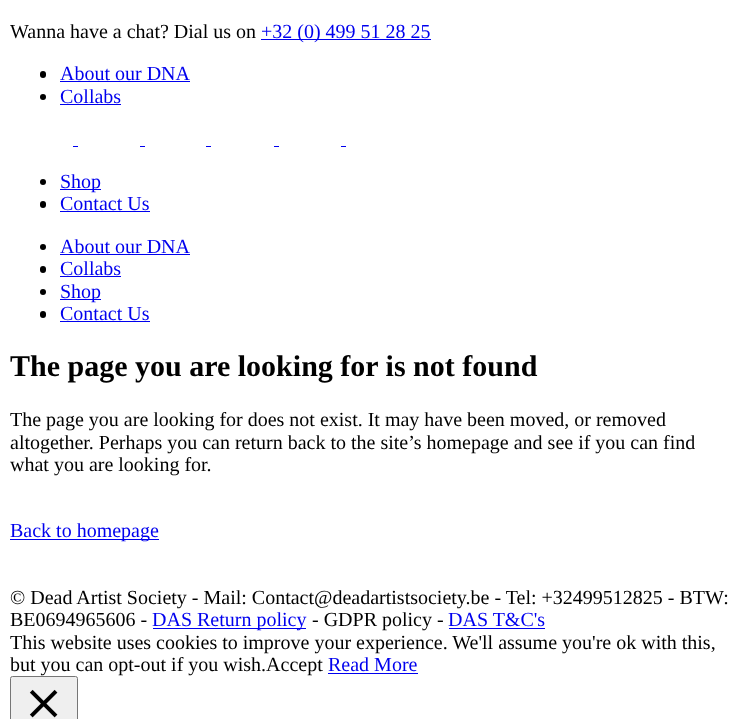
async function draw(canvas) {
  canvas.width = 743
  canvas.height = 719
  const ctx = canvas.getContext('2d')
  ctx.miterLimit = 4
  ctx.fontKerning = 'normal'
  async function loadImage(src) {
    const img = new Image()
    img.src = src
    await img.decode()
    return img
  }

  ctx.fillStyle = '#fff'
  ctx.fillRect(0, 0, 743, 719)
  ctx.font = '20px Liberation Serif'
  ctx.fillStyle = '#000'
  ctx.fillText('Wanna have a chat? Dial us on', 10, 38)
  ctx.fillStyle = '#00e'
  ctx.fillRect(261, 39, 170, 1)
  ctx.fillText('+32 (0) 499 51 28 25', 261, 38)
  ctx.fillStyle = '#000'
  ctx.beginPath()
  ctx.roundRect(40, 71, 6, 7, 3)
  ctx.fill()
  ctx.fillStyle = '#00e'
  ctx.fillText('About our DNA', 60, 80)
  ctx.fillRect(60, 81, 130, 1)
  ctx.fillStyle = '#000'
  ctx.beginPath()
  ctx.arc(43, 97, 3, 0, 2 * Math.PI)
  ctx.fill()
  ctx.fillStyle = '#00e'
  ctx.fillText('Collabs', 60, 103)
  ctx.fillRect(60, 104, 61, 1)
  ctx.fillRect(73, 146, 5, 1)
  ctx.fillRect(140, 146, 5, 1)
  ctx.fillRect(206, 146, 5, 1)
  ctx.fillRect(274, 146, 5, 1)
  ctx.fillRect(341, 146, 5, 1)
  ctx.fillStyle = '#000'
  ctx.beginPath()
  ctx.arc(43, 182, 3, 0, 2 * Math.PI)
  ctx.fill()
  ctx.fillStyle = '#00e'
  ctx.fillRect(60, 189, 41, 1)
  ctx.fillText('Shop', 60, 188)
  ctx.fillStyle = '#000'
  ctx.beginPath()
  ctx.roundRect(40, 201, 6, 7, 3)
  ctx.fill()
  ctx.fillStyle = '#00e'
  ctx.fillText('Contact Us', 60, 210)
  ctx.fillRect(60, 211, 90, 1)
  ctx.fillStyle = '#000'
  ctx.beginPath()
  ctx.arc(43, 247, 3, 0, 2 * Math.PI)
  ctx.fill()
  ctx.fillStyle = '#00e'
  ctx.fillText('About our DNA', 60, 253)
  ctx.fillRect(60, 254, 130, 1)
  ctx.fillStyle = '#000'
  ctx.beginPath()
  ctx.roundRect(40, 266, 6, 7, 3)
  ctx.fill()
  ctx.fillStyle = '#00e'
  ctx.fillText('Collabs', 60, 275)
  ctx.fillRect(60, 276, 61, 1)
  ctx.fillStyle = '#000'
  ctx.beginPath()
  ctx.arc(43, 292, 3, 0, 2 * Math.PI)
  ctx.fill()
  ctx.fillStyle = '#00e'
  ctx.fillRect(60, 299, 41, 1)
  ctx.fillText('Shop', 60, 298)
  ctx.fillStyle = '#000'
  ctx.beginPath()
  ctx.roundRect(40, 311, 6, 7, 3)
  ctx.fill()
  ctx.fillStyle = '#00e'
  ctx.fillText('Contact Us', 60, 320)
  ctx.fillRect(60, 321, 90, 1)
  ctx.font = 'bold 30px Liberation Serif'
  ctx.fillStyle = '#000'
  ctx.fillText('The page you are looking for is not found', 10, 376)
  ctx.font = '20px Liberation Serif'
  ctx.fillText('The page you are looking for does not exist. It may have been moved, or removed', 10, 426)
  ctx.fillText('altogether. Perhaps you can return back to the site’s homepage and see if you can find', 10, 449)
  ctx.fillText('what you are looking for.', 10, 471)
  ctx.fillStyle = '#00e'
  ctx.fillRect(10, 539, 149, 1)
  ctx.fillText('Back to homepage', 10, 537)
  ctx.fillStyle = '#000'
  ctx.fillText('© Dead Artist Society - Mail: Contact@deadartistsociety.be - Tel: +32499512825 - BTW:', 10, 604)
  ctx.fillText('BE0694965606 -', 10, 626)
  ctx.fillStyle = '#00e'
  ctx.fillRect(153, 628, 153, 1)
  ctx.fillText('DAS Return policy', 152, 626)
  ctx.fillStyle = '#000'
  ctx.fillText('- GDPR policy -', 312, 626)
  ctx.fillStyle = '#00e'
  ctx.fillText('DAS T&C\'s', 448, 626)
  ctx.fillRect(449, 628, 96, 1)
  ctx.fillStyle = '#000'
  ctx.fillText('This website uses cookies to improve your experience. We\'ll assume you\'re ok with this,', 10, 649)
  ctx.fillText('but you can opt-out if you wish.Accept', 10, 671)
  ctx.fillStyle = '#00e'
  ctx.fillText('Read More', 328, 671)
  ctx.fillRect(328, 673, 90, 1)
  ctx.fillStyle = '#efefef'
  ctx.beginPath()
  ctx.roundRect(10.5, 676.5, 67, 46, 2)
  ctx.fill()
  ctx.strokeStyle = '#767676'
  ctx.stroke()
  ctx.drawImage(await loadImage('image0.png'), 29, 689, 29, 29)
}

draw(document.querySelector('canvas'))
